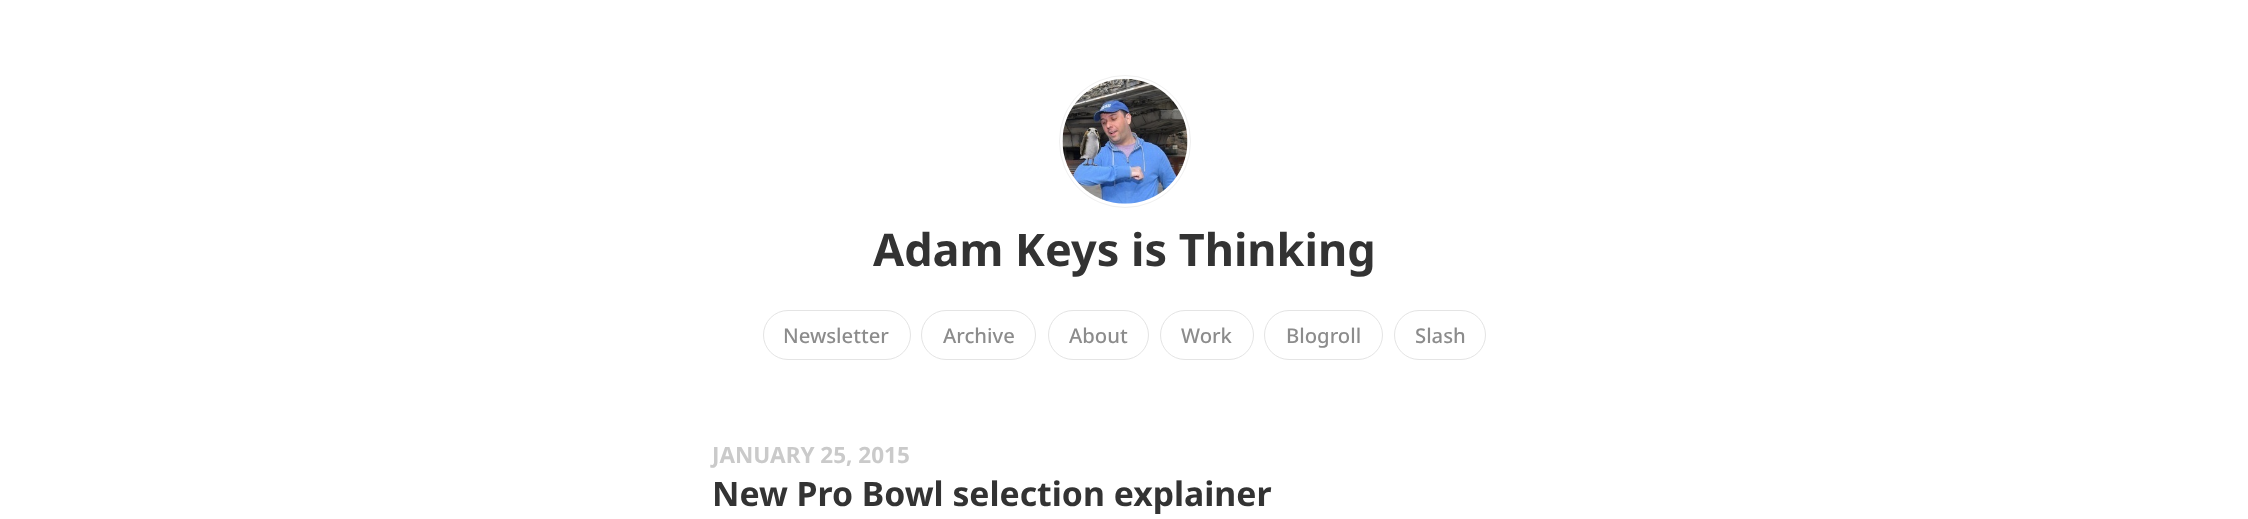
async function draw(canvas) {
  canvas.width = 2248
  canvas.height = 519
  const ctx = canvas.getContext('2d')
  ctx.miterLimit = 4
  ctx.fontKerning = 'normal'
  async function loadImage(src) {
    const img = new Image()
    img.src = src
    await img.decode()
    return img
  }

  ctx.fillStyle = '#fff'
  ctx.fillRect(0, 0, 2248, 519)
  ctx.beginPath()
  ctx.roundRect(1059.5, 75.5, 131, 132, 65.5)
  ctx.strokeStyle = '#f0f0f0'
  ctx.stroke()
  ctx.drawImage(await loadImage('image0.png'), 1062, 78, 126, 126)
  ctx.font = 'bold 45px Noto Sans'
  ctx.fillStyle = '#333'
  ctx.fillText('Adam Keys is Thinking', 873, 266)
  ctx.beginPath()
  ctx.roundRect(763.5, 310.5, 147, 49, 24.5)
  ctx.strokeStyle = '#e4e4e4'
  ctx.stroke()
  ctx.font = '500 20.25px Noto Sans'
  ctx.fillStyle = '#8c8c8c'
  ctx.fillText('Newsletter', 783, 343)
  ctx.beginPath()
  ctx.roundRect(921.5, 310.5, 114, 49, 24.5)
  ctx.stroke()
  ctx.fillText('Archive', 943, 343)
  ctx.beginPath()
  ctx.roundRect(1048.5, 310.5, 100, 49, 24.5)
  ctx.stroke()
  ctx.fillText('About', 1069, 343)
  ctx.beginPath()
  ctx.roundRect(1160.5, 310.5, 93, 49, 24.5)
  ctx.stroke()
  ctx.fillText('Work', 1181, 343)
  ctx.beginPath()
  ctx.roundRect(1264.5, 310.5, 118, 49, 24.5)
  ctx.stroke()
  ctx.fillText('Blogroll', 1286, 343)
  ctx.beginPath()
  ctx.roundRect(1394.5, 310.5, 91, 49, 24.5)
  ctx.stroke()
  ctx.fillText('Slash', 1415, 343)
  ctx.font = 'bold 22.5px Noto Sans'
  ctx.fillStyle = '#cacaca'
  ctx.fillText('JANUARY 25, 2015', 712, 463)
  ctx.font = 'bold 33.75px Noto Sans'
  ctx.fillStyle = '#333'
  ctx.fillText('New Pro Bowl selection explainer', 712, 506)
}

draw(document.querySelector('canvas'))
